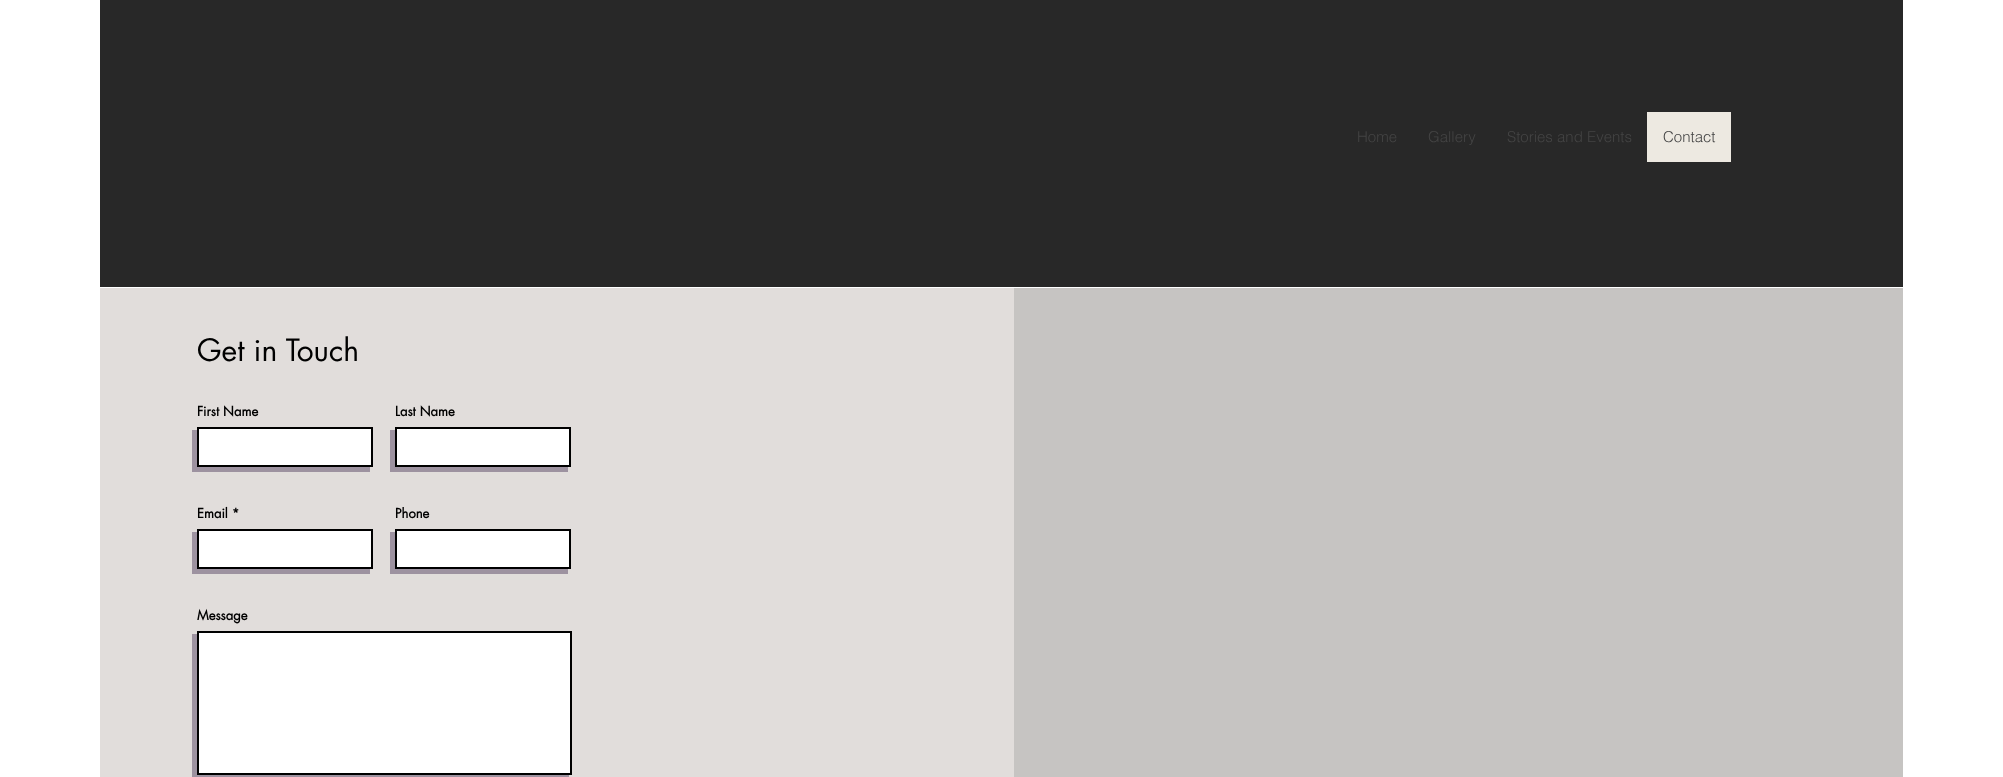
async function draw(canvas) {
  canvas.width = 2003
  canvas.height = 777
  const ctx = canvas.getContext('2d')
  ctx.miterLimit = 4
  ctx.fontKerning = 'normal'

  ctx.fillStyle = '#fff'
  ctx.fillRect(0, 0, 2003, 777)
  ctx.fillStyle = '#282828'
  ctx.fillRect(100, 0, 1803, 287)
  ctx.font = '300 15px helvetica'
  ctx.fillStyle = '#444'
  ctx.fillText('Home', 1357, 142)
  ctx.fillText('Gallery', 1428, 142)
  ctx.fillText('Stories and Events', 1507, 142)
  ctx.fillStyle = '#ede9e1'
  ctx.fillRect(1647, 112, 84, 50)
  ctx.fillStyle = '#444'
  ctx.fillText('Contact', 1663, 142)
  ctx.fillStyle = '#e1dddb'
  ctx.fillRect(100, 288, 914, 489)
  ctx.font = '30px futura'
  ctx.fillStyle = '#000'
  ctx.fillText('Get in Touch', 197, 361)
  ctx.font = 'bold 13px futura'
  ctx.fillText('First Name', 197, 416)
  ctx.fillStyle = '#9d92a0'
  ctx.beginPath()
  ctx.moveTo(192, 430)
  ctx.lineTo(192, 472)
  ctx.lineTo(370, 472)
  ctx.lineTo(370, 467)
  ctx.lineTo(197, 467)
  ctx.lineTo(197, 430)
  ctx.closePath()
  ctx.fill()
  ctx.fillStyle = '#fff'
  ctx.beginPath()
  ctx.rect(198, 428, 174, 38)
  ctx.fill()
  ctx.strokeStyle = '#000'
  ctx.lineWidth = 2
  ctx.stroke()
  ctx.fillStyle = '#000'
  ctx.fillText('Last Name', 395, 416)
  ctx.fillStyle = '#9d92a0'
  ctx.beginPath()
  ctx.moveTo(390, 430)
  ctx.lineTo(390, 472)
  ctx.lineTo(568, 472)
  ctx.lineTo(568, 467)
  ctx.lineTo(395, 467)
  ctx.lineTo(395, 430)
  ctx.closePath()
  ctx.fill()
  ctx.fillStyle = '#fff'
  ctx.beginPath()
  ctx.rect(396, 428, 174, 38)
  ctx.fill()
  ctx.stroke()
  ctx.fillStyle = '#000'
  ctx.fillText('Email *', 197, 518)
  ctx.fillStyle = '#9d92a0'
  ctx.beginPath()
  ctx.moveTo(192, 532)
  ctx.lineTo(192, 574)
  ctx.lineTo(370, 574)
  ctx.lineTo(370, 569)
  ctx.lineTo(197, 569)
  ctx.lineTo(197, 532)
  ctx.closePath()
  ctx.fill()
  ctx.fillStyle = '#fff'
  ctx.beginPath()
  ctx.rect(198, 530, 174, 38)
  ctx.fill()
  ctx.stroke()
  ctx.fillStyle = '#000'
  ctx.fillText('Phone', 395, 518)
  ctx.fillStyle = '#9d92a0'
  ctx.beginPath()
  ctx.moveTo(390, 532)
  ctx.lineTo(390, 574)
  ctx.lineTo(568, 574)
  ctx.lineTo(568, 569)
  ctx.lineTo(395, 569)
  ctx.lineTo(395, 532)
  ctx.closePath()
  ctx.fill()
  ctx.fillStyle = '#fff'
  ctx.beginPath()
  ctx.rect(396, 530, 174, 38)
  ctx.fill()
  ctx.stroke()
  ctx.fillStyle = '#000'
  ctx.fillText('Message', 197, 620)
  ctx.fillStyle = '#9d92a0'
  ctx.beginPath()
  ctx.moveTo(192, 634)
  ctx.lineTo(192, 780)
  ctx.lineTo(569, 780)
  ctx.lineTo(569, 775)
  ctx.lineTo(197, 775)
  ctx.lineTo(197, 634)
  ctx.closePath()
  ctx.fill()
  ctx.fillStyle = '#fff'
  ctx.beginPath()
  ctx.rect(198, 632, 373, 142)
  ctx.fill()
  ctx.stroke()
  ctx.fillStyle = '#c6c4c2'
  ctx.fillRect(1014, 288, 889, 489)
}

draw(document.querySelector('canvas'))
